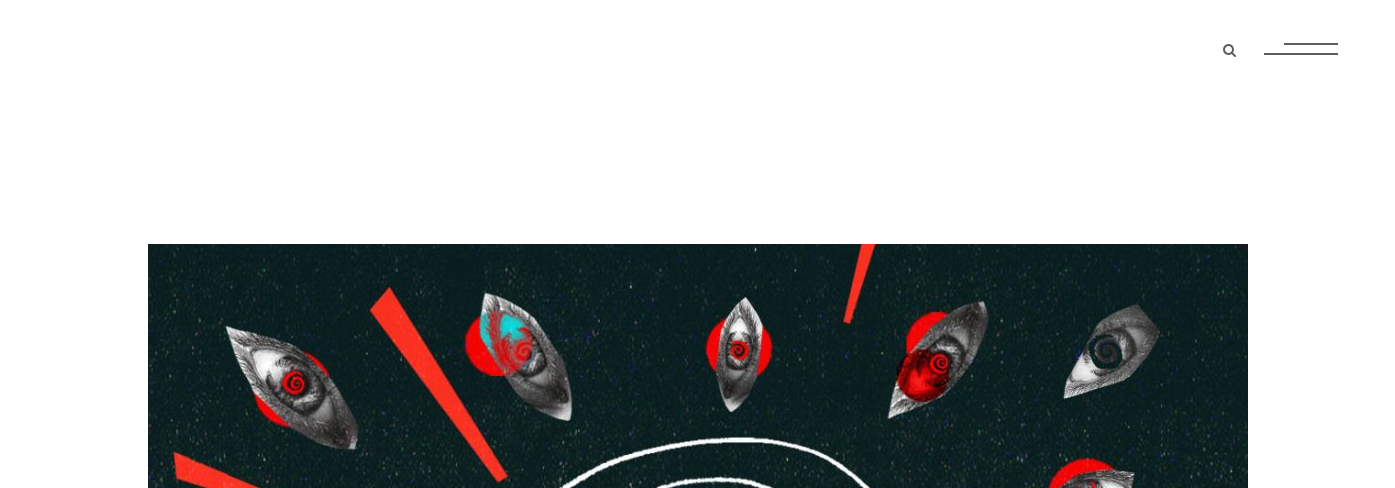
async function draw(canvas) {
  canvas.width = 1395
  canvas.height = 488
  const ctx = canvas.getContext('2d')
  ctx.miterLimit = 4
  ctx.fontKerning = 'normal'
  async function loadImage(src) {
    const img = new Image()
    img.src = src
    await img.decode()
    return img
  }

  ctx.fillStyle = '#fff'
  ctx.fillRect(0, 0, 1395, 488)
  ctx.drawImage(await loadImage('image0.png'), 1223, 44, 13, 13)
  ctx.fillStyle = '#5d5d5d'
  ctx.fillRect(1284, 43, 54, 2)
  ctx.fillRect(1264, 53, 74, 2)
  ctx.drawImage(await loadImage('image1.png'), 148, 244, 1100, 244)
}

draw(document.querySelector('canvas'))
